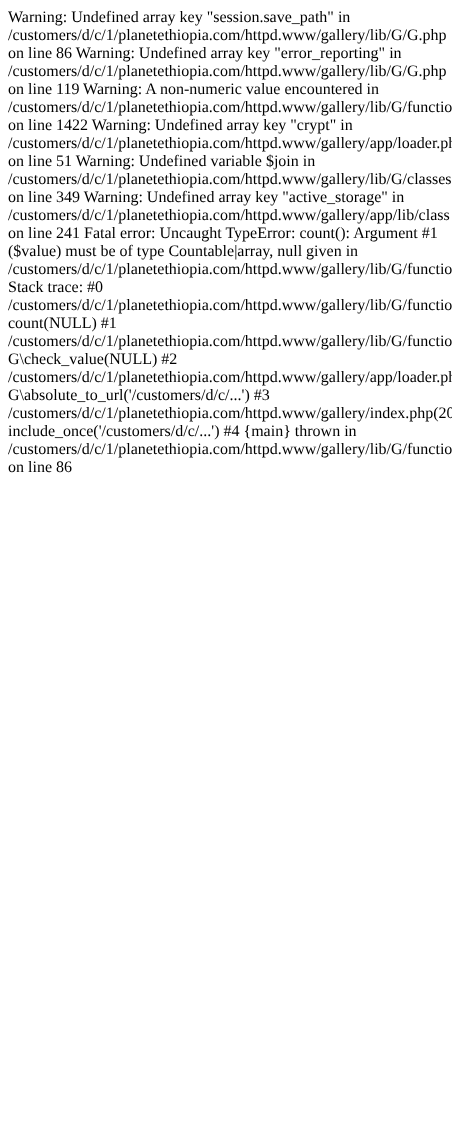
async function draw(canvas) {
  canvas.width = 452
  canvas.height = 1123
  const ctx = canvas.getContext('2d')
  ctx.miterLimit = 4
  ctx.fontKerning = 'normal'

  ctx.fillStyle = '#fff'
  ctx.fillRect(0, 0, 452, 1123)
  ctx.font = '16px Liberation Serif'
  ctx.fillStyle = '#000'
  ctx.fillText('Warning: Undefined array key "session.save_path" in', 8, 22)
  ctx.fillText('/customers/d/c/1/planetethiopia.com/httpd.www/gallery/lib/G/G.php', 8, 40)
  ctx.fillText('on line 86 Warning: Undefined array key "error_reporting" in', 8, 58)
  ctx.fillText('/customers/d/c/1/planetethiopia.com/httpd.www/gallery/lib/G/G.php', 8, 76)
  ctx.fillText('on line 119 Warning: A non-numeric value encountered in', 8, 94)
  ctx.fillText('/customers/d/c/1/planetethiopia.com/httpd.www/gallery/lib/G/functio', 8, 112)
  ctx.fillText('on line 1422 Warning: Undefined array key "crypt" in', 8, 130)
  ctx.fillText('/customers/d/c/1/planetethiopia.com/httpd.www/gallery/app/loader.ph', 8, 148)
  ctx.fillText('on line 51 Warning: Undefined variable $join in', 8, 166)
  ctx.fillText('/customers/d/c/1/planetethiopia.com/httpd.www/gallery/lib/G/classes', 8, 184)
  ctx.fillText('on line 349 Warning: Undefined array key "active_storage" in', 8, 202)
  ctx.fillText('/customers/d/c/1/planetethiopia.com/httpd.www/gallery/app/lib/class', 8, 220)
  ctx.fillText('on line 241 Fatal error: Uncaught TypeError: count(): Argument #1', 8, 238)
  ctx.fillText('($value) must be of type Countable|array, null given in', 8, 256)
  ctx.fillText('/customers/d/c/1/planetethiopia.com/httpd.www/gallery/lib/G/functio', 8, 274)
  ctx.fillText('Stack trace: #0', 8, 292)
  ctx.fillText('/customers/d/c/1/planetethiopia.com/httpd.www/gallery/lib/G/functio', 8, 310)
  ctx.fillText('count(NULL) #1', 8, 328)
  ctx.fillText('/customers/d/c/1/planetethiopia.com/httpd.www/gallery/lib/G/functio', 8, 346)
  ctx.fillText('G\\check_value(NULL) #2', 8, 364)
  ctx.fillText('/customers/d/c/1/planetethiopia.com/httpd.www/gallery/app/loader.ph', 8, 382)
  ctx.fillText('G\\absolute_to_url(\'/customers/d/c/...\') #3', 8, 400)
  ctx.fillText('/customers/d/c/1/planetethiopia.com/httpd.www/gallery/index.php(20', 8, 418)
  ctx.fillText('include_once(\'/customers/d/c/...\') #4 {main} thrown in', 8, 436)
  ctx.fillText('/customers/d/c/1/planetethiopia.com/httpd.www/gallery/lib/G/functio', 8, 454)
  ctx.fillText('on line 86', 8, 472)
}

draw(document.querySelector('canvas'))
